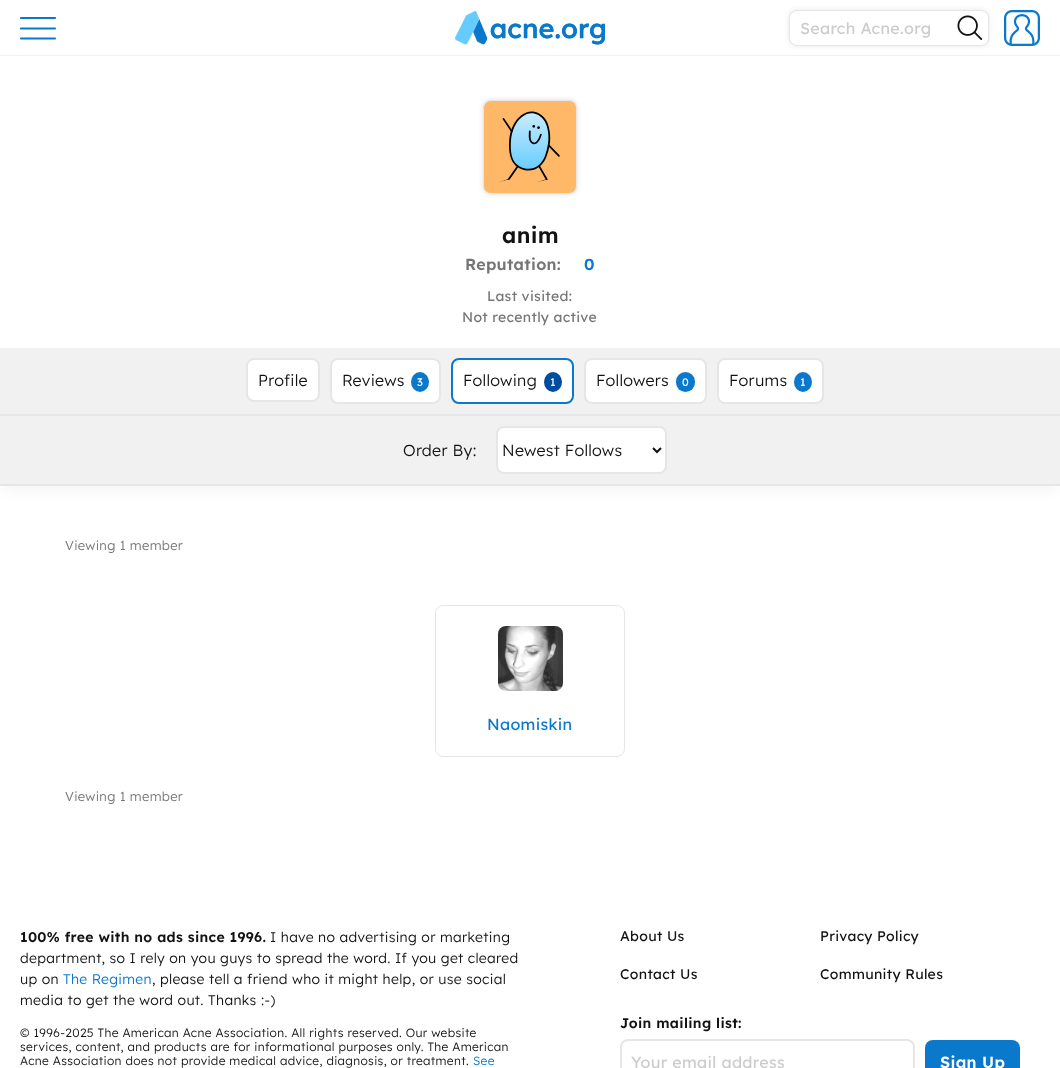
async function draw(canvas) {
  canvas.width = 1060
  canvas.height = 1068
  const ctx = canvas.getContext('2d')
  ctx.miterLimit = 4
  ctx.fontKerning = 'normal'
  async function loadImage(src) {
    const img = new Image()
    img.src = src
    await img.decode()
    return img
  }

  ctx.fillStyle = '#fff'
  ctx.fillRect(0, 0, 1060, 1068)
  ctx.fillStyle = '#f1f1f1'
  ctx.fillRect(0, 55, 1060, 1)
  ctx.beginPath()
  ctx.moveTo(21, 18)
  ctx.lineTo(55, 18)
  ctx.moveTo(21, 28.5)
  ctx.lineTo(55, 28.5)
  ctx.moveTo(21, 38.5)
  ctx.lineTo(55, 38.5)
  ctx.strokeStyle = '#0b79cb'
  ctx.lineWidth = 2.2
  ctx.lineCap = 'round'
  ctx.stroke()
  ctx.drawImage(await loadImage('image0.png'), 455, 11, 150, 34)
  ctx.fillStyle = '#0000001a'
  ctx.filter = 'blur(2.5px)'
  ctx.beginPath()
  ctx.roundRect(789, 10, 200, 36, 8)
  ctx.fill()
  ctx.filter = 'none'
  ctx.fillStyle = '#fff'
  ctx.beginPath()
  ctx.roundRect(789.5, 10.5, 199, 35, 7.5)
  ctx.fill()
  ctx.strokeStyle = '#e6e6e6'
  ctx.lineWidth = 1
  ctx.stroke()
  ctx.letterSpacing = '0.32px'
  ctx.font = '16px Lexend Deca'
  ctx.fillStyle = '#ccc'
  ctx.fillText('Search Acne.org', 800, 34)
  ctx.drawImage(await loadImage('image1.png'), 957, 15, 26, 25)
  ctx.drawImage(await loadImage('image2.png'), 1004, 10, 36, 36)
  ctx.fillStyle = '#00000021'
  ctx.filter = 'blur(2.5px)'
  ctx.beginPath()
  ctx.roundRect(483, 100, 94, 94, 8)
  ctx.fill()
  ctx.filter = 'none'
  ctx.fillStyle = '#feb867'
  ctx.beginPath()
  ctx.roundRect(483.5, 100.5, 93, 93, 7.5)
  ctx.fill()
  ctx.stroke()
  ctx.drawImage(await loadImage('image3.png'), 497, 111, 63, 73)
  ctx.font = '600 22px Lexend Deca'
  ctx.fillStyle = '#121212'
  ctx.fillText('anim', 502, 243)
  ctx.font = '600 16px Lexend Deca'
  ctx.fillStyle = '#767676'
  ctx.fillText('Reputation:', 465, 270)
  ctx.fillStyle = '#0b79cb'
  ctx.fillText('0', 584, 270)
  ctx.font = '14px Lexend Deca'
  ctx.fillStyle = '#767676'
  ctx.fillText('Last visited:', 487, 301)
  ctx.fillText('Not recently active', 462, 322)
  ctx.fillStyle = '#f1f1f1'
  ctx.fillRect(0, 348, 1060, 66)
  ctx.fillStyle = '#e6e6e6'
  ctx.fillRect(0, 414, 1060, 2)
  ctx.fillStyle = '#fff'
  ctx.beginPath()
  ctx.roundRect(247, 359, 72, 42, 7)
  ctx.fill()
  ctx.lineWidth = 2
  ctx.stroke()
  ctx.font = '300 16px Lexend Deca'
  ctx.fillStyle = '#121212'
  ctx.fillText('Profile', 258, 386)
  ctx.fillStyle = '#fff'
  ctx.beginPath()
  ctx.roundRect(331, 359, 109, 44, 7)
  ctx.fill()
  ctx.stroke()
  ctx.fillStyle = '#121212'
  ctx.fillText('Reviews', 342, 386)
  ctx.fillStyle = '#0b79cb'
  ctx.beginPath()
  ctx.ellipse(420, 382, 9, 10, 0, 0, 2 * Math.PI)
  ctx.fill()
  ctx.font = '11px Lexend Deca'
  ctx.fillStyle = '#fff'
  ctx.fillText('3', 417, 386)
  ctx.beginPath()
  ctx.roundRect(452, 359, 121, 44, 7)
  ctx.fill()
  ctx.strokeStyle = '#0b79cb'
  ctx.stroke()
  ctx.font = '300 16px Lexend Deca'
  ctx.fillStyle = '#121212'
  ctx.fillText('Following', 463, 386)
  ctx.fillStyle = '#004d9f'
  ctx.beginPath()
  ctx.ellipse(553, 382, 9, 10, 0, 0, 2 * Math.PI)
  ctx.fill()
  ctx.font = '11px Lexend Deca'
  ctx.fillStyle = '#fff'
  ctx.fillText('1', 550, 386)
  ctx.beginPath()
  ctx.roundRect(585, 359, 121, 44, 7)
  ctx.fill()
  ctx.strokeStyle = '#e6e6e6'
  ctx.stroke()
  ctx.font = '300 16px Lexend Deca'
  ctx.fillStyle = '#121212'
  ctx.fillText('Followers', 596, 386)
  ctx.fillStyle = '#0b79cb'
  ctx.beginPath()
  ctx.roundRect(676, 372, 19, 20, 9.5)
  ctx.fill()
  ctx.font = '11px Lexend Deca'
  ctx.fillStyle = '#fff'
  ctx.fillText('0', 682, 386)
  ctx.beginPath()
  ctx.roundRect(718, 359, 105, 44, 7)
  ctx.fill()
  ctx.stroke()
  ctx.font = '300 16px Lexend Deca'
  ctx.fillStyle = '#121212'
  ctx.fillText('Forums', 729, 386)
  ctx.fillStyle = '#0b79cb'
  ctx.beginPath()
  ctx.ellipse(803, 382, 9, 10, 0, 0, 2 * Math.PI)
  ctx.fill()
  ctx.font = '11px Lexend Deca'
  ctx.fillStyle = '#fff'
  ctx.fillText('1', 800, 386)
  ctx.fillStyle = '#0000000d'
  ctx.filter = 'blur(6.5px)'
  ctx.beginPath()
  ctx.rect(4, 428, 1052, 62)
  ctx.fill()
  ctx.filter = 'none'
  ctx.fillStyle = '#f1f1f1'
  ctx.fillRect(0, 416, 1060, 68)
  ctx.fillStyle = '#e6e6e6'
  ctx.fillRect(0, 484, 1060, 2)
  ctx.font = '300 16px Lexend Deca'
  ctx.fillStyle = '#121212'
  ctx.fillText('Order By:', 403, 456)
  ctx.fillStyle = '#fff'
  ctx.beginPath()
  ctx.roundRect(497, 427, 169, 46, 7)
  ctx.fill()
  ctx.stroke()
  ctx.beginPath()
  ctx.moveTo(653, 448)
  ctx.lineTo(657, 452)
  ctx.lineTo(661, 448)
  ctx.strokeStyle = '#121212'
  ctx.lineCap = 'butt'
  ctx.stroke()
  ctx.fillStyle = '#121212'
  ctx.fillText('Newest Follows', 502, 456)
  ctx.font = '300 13px Lexend Deca'
  ctx.fillStyle = '#767676'
  ctx.fillText('Viewing 1 member', 65, 550)
  ctx.beginPath()
  ctx.roundRect(435.5, 605.5, 189, 151, 7.5)
  ctx.strokeStyle = '#e6e6e6'
  ctx.lineWidth = 1
  ctx.stroke()
  ctx.drawImage(await loadImage('image4.png'), 498, 626, 65, 65)
  ctx.font = '16px Lexend Deca'
  ctx.fillStyle = '#0b79cb'
  ctx.fillText('Naomiskin', 487, 730)
  ctx.font = '300 13px Lexend Deca'
  ctx.fillStyle = '#767676'
  ctx.fillText('Viewing 1 member', 65, 801)
  ctx.font = '600 14px Lexend Deca'
  ctx.fillStyle = '#121212'
  ctx.fillText('100% free with no ads since 1996.', 20, 942)
  ctx.font = '300 14px Lexend Deca'
  ctx.fillText('I have no advertising or marketing', 270, 942)
  ctx.fillText('department, so I rely on you guys to spread the word. If you get cleared', 20, 963)
  ctx.fillText('up on', 20, 984)
  ctx.fillStyle = '#0b79cb'
  ctx.fillText('The Regimen', 63, 984)
  ctx.fillStyle = '#121212'
  ctx.fillText(', please tell a friend who it might help, or use social', 152, 984)
  ctx.fillText('media to get the word out. Thanks :-)', 20, 1005)
  ctx.font = '300 12px Lexend Deca'
  ctx.fillText('© 1996-2025 The American Acne Association. All rights reserved. Our website', 20, 1037)
  ctx.fillText('services, content, and products are for informational purposes only. The American', 20, 1051)
  ctx.fillText('Acne Association does not provide medical advice, diagnosis, or treatment.', 20, 1065)
  ctx.fillStyle = '#0b79cb'
  ctx.fillText('See', 473, 1065)
  ctx.font = '14px Lexend Deca'
  ctx.fillStyle = '#121212'
  ctx.fillText('About Us', 620, 941)
  ctx.fillText('Privacy Policy', 820, 941)
  ctx.fillText('Contact Us', 620, 979)
  ctx.fillText('Community Rules', 820, 979)
  ctx.font = '600 14px Lexend Deca'
  ctx.fillText('Join mailing list:', 620, 1028)
  ctx.beginPath()
  ctx.roundRect(621, 1040, 293, 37, 7)
  ctx.lineWidth = 2
  ctx.stroke()
  ctx.font = '16px Lexend Deca'
  ctx.fillStyle = '#ccc'
  ctx.fillText('Your email address', 631, 1068)
  ctx.fillStyle = '#0b79cb'
  ctx.beginPath()
  ctx.roundRect(925, 1040, 95, 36, 8)
  ctx.fill()
  ctx.font = '600 16px Lexend Deca'
  ctx.fillStyle = '#fff'
  ctx.fillText('Sign Up', 940, 1068)
}

draw(document.querySelector('canvas'))
